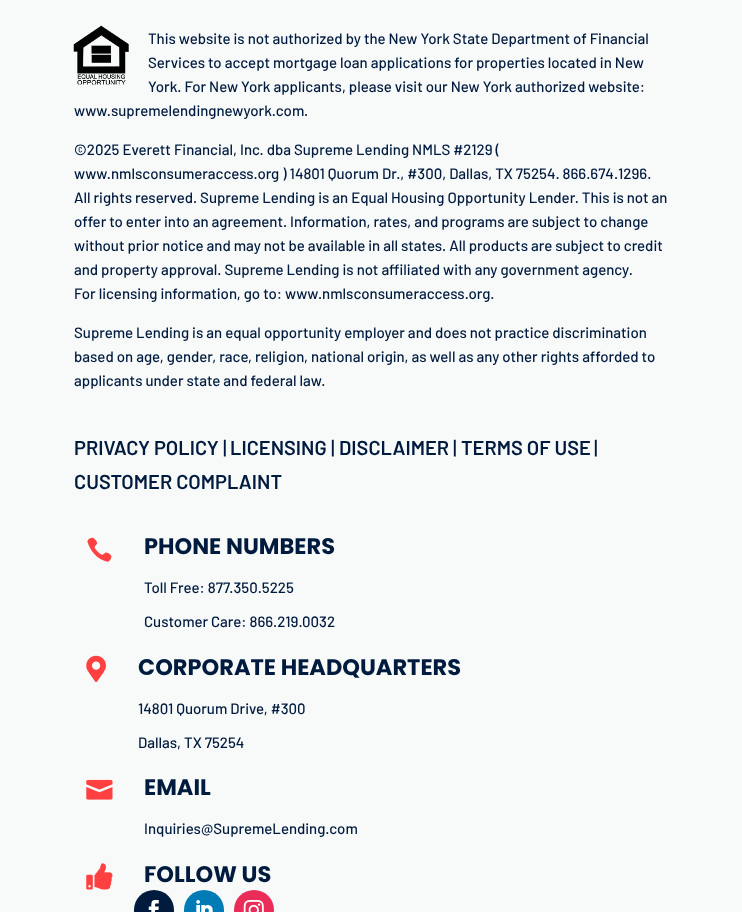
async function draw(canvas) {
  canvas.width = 742
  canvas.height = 912
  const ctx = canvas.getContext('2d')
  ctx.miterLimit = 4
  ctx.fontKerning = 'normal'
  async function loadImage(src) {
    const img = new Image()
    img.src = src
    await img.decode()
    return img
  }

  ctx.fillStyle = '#f8fafa'
  ctx.fillRect(0, 0, 742, 912)
  ctx.drawImage(await loadImage('image0.png'), 73, 25, 56, 60)
  ctx.font = '500 15px Barlow'
  ctx.fillStyle = '#011b3f'
  ctx.fillText('This website is not authorized by the New York State Department of Financial', 148, 44)
  ctx.fillText('Services to accept mortgage loan applications for properties located in New', 148, 68)
  ctx.fillText('York. For New York applicants, please visit our New York authorized website:', 148, 92)
  ctx.fillText('www.supremelendingnewyork.com.', 74, 116)
  ctx.fillText('©2025 Everett Financial, Inc. dba Supreme Lending NMLS #2129 (', 74, 155)
  ctx.fillText('www.nmlsconsumeraccess.org ) 14801 Quorum Dr., #300, Dallas, TX 75254. 866.674.1296.', 74, 179)
  ctx.fillText('All rights reserved. Supreme Lending is an Equal Housing Opportunity Lender. This is not an', 74, 203)
  ctx.fillText('offer to enter into an agreement. Information, rates, and programs are subject to change', 74, 227)
  ctx.fillText('without prior notice and may not be available in all states. All products are subject to credit', 74, 251)
  ctx.fillText('and property approval. Supreme Lending is not affiliated with any government agency.', 74, 275)
  ctx.fillText('For licensing information, go to: www.nmlsconsumeraccess.org.', 74, 299)
  ctx.fillText('Supreme Lending is an equal opportunity employer and does not practice discrimination', 74, 338)
  ctx.fillText('based on age, gender, race, religion, national origin, as well as any other rights afforded to', 74, 362)
  ctx.fillText('applicants under state and federal law.', 74, 386)
  ctx.font = '600 20px Barlow'
  ctx.fillText('PRIVACY POLICY', 74, 455)
  ctx.font = '500 20px Barlow'
  ctx.fillText('|', 223, 455)
  ctx.font = '600 20px Barlow'
  ctx.fillText('LICENSING', 230, 455)
  ctx.font = '500 20px Barlow'
  ctx.fillText('|', 331, 455)
  ctx.font = '600 20px Barlow'
  ctx.fillText('DISCLAIMER', 339, 455)
  ctx.font = '500 20px Barlow'
  ctx.fillText('|', 453, 455)
  ctx.font = '600 20px Barlow'
  ctx.fillText('TERMS OF USE', 461, 455)
  ctx.font = '500 20px Barlow'
  ctx.fillText('|', 594, 455)
  ctx.font = '600 20px Barlow'
  ctx.fillText('CUSTOMER COMPLAINT', 74, 489)
  ctx.drawImage(await loadImage('image1.png'), 87, 537, 25, 25)
  ctx.font = 'bold 22.5px Poppins'
  ctx.fillText('PHONE NUMBERS', 144, 554)
  ctx.font = '500 15px Barlow'
  ctx.fillText('Toll Free: 877.350.5225', 144, 593)
  ctx.fillText('Customer Care: 866.219.0032', 144, 627)
  ctx.drawImage(await loadImage('image2.png'), 86, 655, 20, 27)
  ctx.font = 'bold 22.5px Poppins'
  ctx.fillText('CORPORATE HEADQUARTERS', 138, 675)
  ctx.font = '500 15px Barlow'
  ctx.fillText('14801 Quorum Drive, #300', 138, 714)
  ctx.fillText('Dallas, TX 75254', 138, 748)
  ctx.drawImage(await loadImage('image3.png'), 86, 779, 27, 21)
  ctx.font = 'bold 22.5px Poppins'
  ctx.fillText('EMAIL', 144, 795)
  ctx.font = '500 15px Barlow'
  ctx.fillText('Inquiries@SupremeLending.com', 144, 834)
  ctx.drawImage(await loadImage('image4.png'), 86, 863, 27, 27)
  ctx.font = 'bold 22.5px Poppins'
  ctx.fillText('FOLLOW US', 144, 882)
  ctx.beginPath()
  ctx.arc(154, 910, 20, 0, 2 * Math.PI)
  ctx.fill()
  ctx.drawImage(await loadImage('image5.png'), 148, 900, 11, 12)
  ctx.fillStyle = '#007bb6'
  ctx.beginPath()
  ctx.arc(204, 910, 20, 0, 2 * Math.PI)
  ctx.fill()
  ctx.drawImage(await loadImage('image6.png'), 196, 900, 17, 12)
  ctx.fillStyle = '#ea2c59'
  ctx.beginPath()
  ctx.arc(254, 910, 20, 0, 2 * Math.PI)
  ctx.fill()
  ctx.drawImage(await loadImage('image7.png'), 243, 900, 21, 12)
}

draw(document.querySelector('canvas'))
